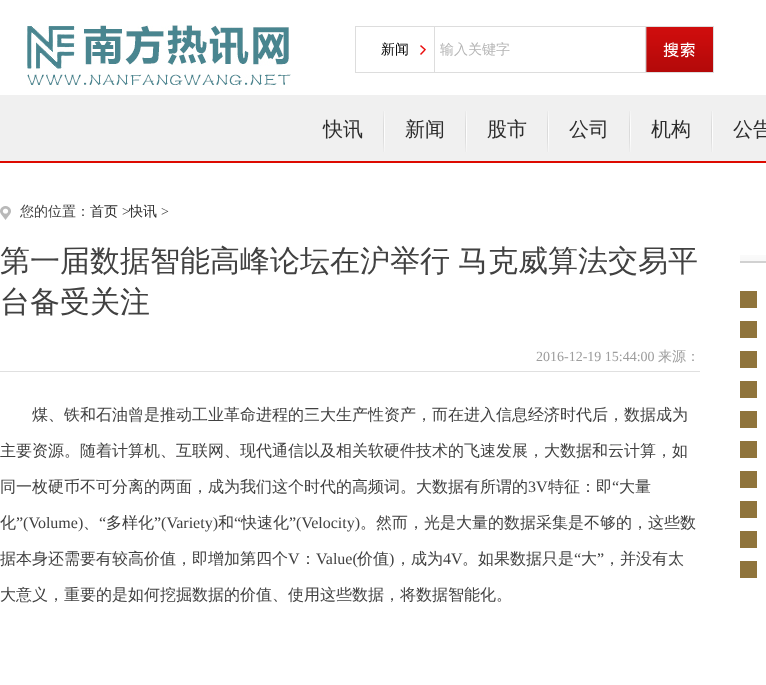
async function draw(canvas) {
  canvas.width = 766
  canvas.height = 685
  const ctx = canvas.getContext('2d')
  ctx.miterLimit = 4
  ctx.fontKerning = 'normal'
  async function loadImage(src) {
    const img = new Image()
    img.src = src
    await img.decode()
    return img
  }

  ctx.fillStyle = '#fff'
  ctx.fillRect(0, 0, 766, 685)
  ctx.drawImage(await loadImage('image0.png'), 27, 25, 264, 64)
  ctx.fillStyle = '#ddd'
  ctx.fillRect(355, 26, 79, 1)
  ctx.fillRect(355, 72, 79, 1)
  ctx.fillRect(355, 26, 1, 47)
  ctx.drawImage(await loadImage('image1.png'), 420, 45, 6, 10)
  ctx.font = '500 14px WenQuanYi Zen Hei'
  ctx.fillStyle = '#000'
  ctx.fillText('新闻', 381, 54)
  ctx.strokeStyle = '#ddd'
  ctx.strokeRect(434.5, 26.5, 211, 46)
  ctx.fillStyle = '#b5b5b5'
  ctx.fillText('输入关键字', 440, 54)
  ctx.fillStyle = '#ddd'
  ctx.fillRect(646, 26, 68, 1)
  ctx.fillRect(713, 26, 1, 47)
  ctx.fillRect(646, 72, 68, 1)
  ctx.drawImage(await loadImage('image2.png'), 646, 27, 67, 45)
  ctx.drawImage(await loadImage('image3.png'), 0, 95, 766, 68)
  ctx.font = '500 20px WenQuanYi Zen Hei'
  ctx.fillStyle = '#2c2c2c'
  ctx.fillText('快讯', 323, 136)
  ctx.drawImage(await loadImage('image4.png'), 383, 111, 2, 41)
  ctx.fillText('新闻', 405, 136)
  ctx.drawImage(await loadImage('image4.png'), 465, 111, 2, 41)
  ctx.fillText('股市', 487, 136)
  ctx.drawImage(await loadImage('image4.png'), 547, 111, 2, 41)
  ctx.fillText('公司', 569, 136)
  ctx.drawImage(await loadImage('image4.png'), 629, 111, 2, 41)
  ctx.fillText('机构', 651, 136)
  ctx.drawImage(await loadImage('image4.png'), 711, 111, 2, 41)
  ctx.fillText('公告', 733, 136)
  ctx.drawImage(await loadImage('image5.png'), 0, 206, 11, 14)
  ctx.font = '500 14px WenQuanYi Zen Hei'
  ctx.fillStyle = '#414141'
  ctx.fillText('您的位置：', 20, 216)
  ctx.fillStyle = '#2c2c2c'
  ctx.fillText('首页', 90, 216)
  ctx.font = '14px Liberation Serif'
  ctx.fillStyle = '#414141'
  ctx.fillText('>', 122, 216)
  ctx.font = '500 14px WenQuanYi Zen Hei'
  ctx.fillStyle = '#2c2c2c'
  ctx.fillText('快讯', 129, 216)
  ctx.font = '14px Liberation Serif'
  ctx.fillStyle = '#414141'
  ctx.fillText('>', 161, 216)
  ctx.fillStyle = '#e0e0e0'
  ctx.fillRect(0, 371, 700, 1)
  ctx.wordSpacing = '-1px'
  ctx.font = '500 30px WenQuanYi Zen Hei'
  ctx.fillStyle = '#414141'
  ctx.fillText('第一届数据智能高峰论坛在沪举行 马克威算法交易平', 0, 271)
  ctx.wordSpacing = '0px'
  ctx.fillText('台备受关注', 0, 312)
  ctx.font = '14px Liberation Serif'
  ctx.fillStyle = '#9d9d9d'
  ctx.fillText('2016-12-19 15:44:00', 536, 361)
  ctx.font = '500 14px WenQuanYi Zen Hei'
  ctx.fillText('来源：', 658, 361)
  ctx.font = '500 16px WenQuanYi Zen Hei'
  ctx.fillStyle = '#414141'
  ctx.fillText('煤、铁和石油曾是推动工业革命进程的三大生产性资产，而在进入信息经济时代后，数据成为', 32, 420)
  ctx.fillText('主要资源。随着计算机、互联网、现代通信以及相关软硬件技术的飞速发展，大数据和云计算，如', 0, 456)
  ctx.fillText('同一枚硬币不可分离的两面，成为我们这个时代的高频词。大数据有所谓的', 0, 492)
  ctx.font = '16px Liberation Serif'
  ctx.fillText('3V', 528, 492)
  ctx.font = '500 16px WenQuanYi Zen Hei'
  ctx.fillText('特征：即', 548, 492)
  ctx.font = '16px Liberation Serif'
  ctx.fillText('“', 612, 492)
  ctx.font = '500 16px WenQuanYi Zen Hei'
  ctx.fillText('大量', 619, 492)
  ctx.fillText('化', 0, 528)
  ctx.font = '16px Liberation Serif'
  ctx.fillText('”(Volume)', 16, 528)
  ctx.fillText('“', 99, 528)
  ctx.font = '500 16px WenQuanYi Zen Hei'
  ctx.fillText('多样化', 106, 528)
  ctx.font = '16px Liberation Serif'
  ctx.fillText('”(Variety)', 154, 528)
  ctx.font = '500 16px WenQuanYi Zen Hei'
  ctx.fillText('和', 218, 528)
  ctx.font = '16px Liberation Serif'
  ctx.fillText('“', 234, 528)
  ctx.font = '500 16px WenQuanYi Zen Hei'
  ctx.fillText('快速化', 241, 528)
  ctx.font = '16px Liberation Serif'
  ctx.fillText('”(Velocity)', 289, 528)
  ctx.font = '500 16px WenQuanYi Zen Hei'
  ctx.fillText('。然而，光是大量的数据采集是不够的，这些数', 360, 528)
  ctx.fillText('、', 83, 528)
  ctx.fillText('据本身还需要有较高价值，即增加第四个', 0, 564)
  ctx.font = '16px Liberation Serif'
  ctx.fillText('V', 288, 564)
  ctx.font = '500 16px WenQuanYi Zen Hei'
  ctx.fillText('：', 300, 564)
  ctx.font = '16px Liberation Serif'
  ctx.fillText('Value(', 316, 564)
  ctx.font = '500 16px WenQuanYi Zen Hei'
  ctx.fillText('价值', 357, 564)
  ctx.font = '16px Liberation Serif'
  ctx.fillText(')', 389, 564)
  ctx.font = '500 16px WenQuanYi Zen Hei'
  ctx.fillText('，成为', 395, 564)
  ctx.font = '16px Liberation Serif'
  ctx.fillText('4V', 443, 564)
  ctx.font = '500 16px WenQuanYi Zen Hei'
  ctx.fillText('。如果数据只是', 462, 564)
  ctx.font = '16px Liberation Serif'
  ctx.fillText('“', 574, 564)
  ctx.font = '500 16px WenQuanYi Zen Hei'
  ctx.fillText('大', 581, 564)
  ctx.font = '16px Liberation Serif'
  ctx.fillText('”', 597, 564)
  ctx.font = '500 16px WenQuanYi Zen Hei'
  ctx.fillText('，并没有太', 604, 564)
  ctx.fillText('大意义，重要的是如何挖掘数据的价值、使用这些数据，将数据智能化。', 0, 600)
  ctx.drawImage(await loadImage('image6.png'), 740, 255, 26, 8)
  ctx.fillStyle = '#8f743c'
  ctx.fillRect(740, 291, 17, 17)
  ctx.fillRect(740, 321, 17, 17)
  ctx.fillRect(740, 351, 17, 17)
  ctx.fillRect(740, 381, 17, 17)
  ctx.fillRect(740, 411, 17, 17)
  ctx.fillRect(740, 441, 17, 17)
  ctx.fillRect(740, 471, 17, 17)
  ctx.fillRect(740, 501, 17, 17)
  ctx.fillRect(740, 531, 17, 17)
  ctx.fillRect(740, 561, 17, 17)
}

draw(document.querySelector('canvas'))
